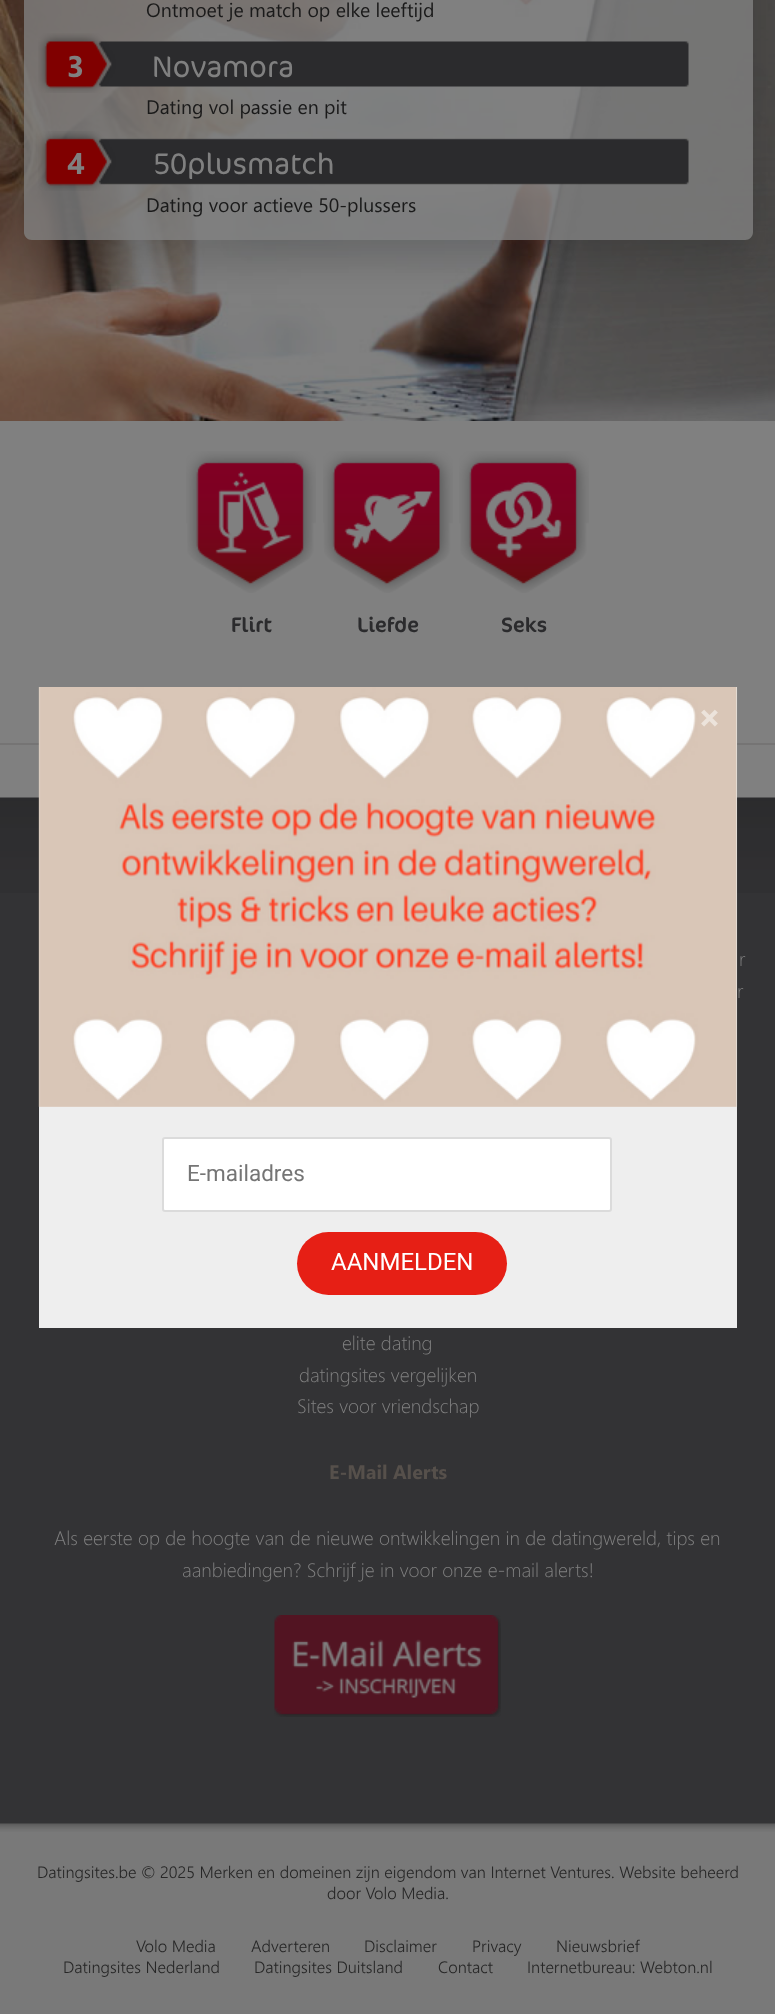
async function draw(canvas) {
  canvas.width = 775
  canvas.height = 2014
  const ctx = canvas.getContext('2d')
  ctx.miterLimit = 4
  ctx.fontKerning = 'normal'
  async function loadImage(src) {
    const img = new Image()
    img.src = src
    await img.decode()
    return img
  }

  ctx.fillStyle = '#808080'
  ctx.fillRect(0, 0, 775, 2014)
  ctx.drawImage(await loadImage('image0.png'), 0, 0, 775, 421)
  ctx.save()
  ctx.beginPath()
  ctx.moveTo(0, 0)
  ctx.lineTo(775, 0)
  ctx.lineTo(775, 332)
  ctx.lineTo(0, 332)
  ctx.closePath()
  ctx.moveTo(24, -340)
  ctx.lineTo(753, -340)
  ctx.lineTo(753, 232)
  ctx.bezierCurveTo(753, 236.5, 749.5, 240, 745, 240)
  ctx.lineTo(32, 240)
  ctx.bezierCurveTo(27.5, 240, 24, 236.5, 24, 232)
  ctx.closePath()
  ctx.clip('evenodd')
  ctx.fillStyle = '#00000026'
  ctx.filter = 'blur(22.5px)'
  ctx.beginPath()
  ctx.roundRect(24, -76, 729, 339, 8)
  ctx.fill()
  ctx.filter = 'none'
  ctx.restore()
  ctx.fillStyle = '#808080cc'
  ctx.beginPath()
  ctx.moveTo(24, -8)
  ctx.lineTo(753, -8)
  ctx.lineTo(753, 232)
  ctx.bezierCurveTo(753, 236.5, 749.5, 240, 745, 240)
  ctx.lineTo(32, 240)
  ctx.bezierCurveTo(27.5, 240, 24, 236.5, 24, 232)
  ctx.closePath()
  ctx.fill()
  ctx.font = '19.5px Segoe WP'
  ctx.fillStyle = '#1a1a1a'
  ctx.fillText('Ontmoet je match op elke leeftijd', 146, 17)
  ctx.drawImage(await loadImage('image1.png'), 38, 33, 651, 60)
  ctx.font = 'bold 30px Segoe WP'
  ctx.fillStyle = '#808080'
  ctx.fillText('3', 67, 77)
  ctx.font = '300 30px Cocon'
  ctx.fillText('Novamora', 152, 77)
  ctx.font = '19.5px Segoe WP'
  ctx.fillStyle = '#1a1a1a'
  ctx.fillText('Dating vol passie en pit', 146, 114)
  ctx.drawImage(await loadImage('image2.png'), 38, 131, 651, 60)
  ctx.font = 'bold 30px Segoe WP'
  ctx.fillStyle = '#808080'
  ctx.fillText('4', 67, 174)
  ctx.font = '300 30px Cocon'
  ctx.fillText('50plusmatch', 153, 174)
  ctx.font = '19.5px Segoe WP'
  ctx.fillStyle = '#1a1a1a'
  ctx.fillText('Dating voor actieve 50-plussers', 146, 212)
  ctx.drawImage(await loadImage('image3.png'), 186, 451, 130, 142)
  ctx.font = '21px Cocon'
  ctx.fillStyle = '#2b2b2d'
  ctx.fillText('Flirt', 231, 632)
  ctx.drawImage(await loadImage('image4.png'), 323, 451, 130, 142)
  ctx.fillText('Liefde', 357, 632)
  ctx.drawImage(await loadImage('image5.png'), 459, 451, 130, 142)
  ctx.fillText('Seks', 501, 632)
  ctx.fillStyle = '#757474'
  ctx.fillRect(0, 743, 775, 2)
  ctx.fillStyle = '#333335'
  ctx.fillRect(0, 893, 775, 931)
  ctx.drawImage(await loadImage('image7.png'), 0, 797, 775, 96)
  ctx.fillStyle = '#eee'
  ctx.fillRect(39, 687, 698, 641)
  ctx.drawImage(await loadImage('image6.png'), 38, 687, 700, 420)
  ctx.font = 'bold 36px Roboto'
  ctx.fillStyle = '#ece3db'
  ctx.fillText('×', 700, 730)
  ctx.fillStyle = '#fff'
  ctx.beginPath()
  ctx.roundRect(163, 1138, 448, 73, 2)
  ctx.fill()
  ctx.strokeStyle = '#dbdbdb'
  ctx.lineWidth = 2
  ctx.stroke()
  ctx.font = '22.5px Roboto'
  ctx.fillStyle = '#757575'
  ctx.fillText('E-mailadres', 187, 1181)
  ctx.fillStyle = '#e61f15'
  ctx.beginPath()
  ctx.roundRect(297, 1232, 210, 63, 31.5)
  ctx.fill()
  ctx.font = '24px Roboto'
  ctx.fillStyle = '#fff'
  ctx.fillText('AANMELDEN', 331, 1270)
  ctx.font = '300 19.5px Segoe WP'
  ctx.fillStyle = '#808080'
  ctx.fillText('r', 739, 966)
  ctx.fillText('r', 737, 998)
  ctx.fillText('elite dating', 342, 1350)
  ctx.fillText('datingsites vergelijken', 299, 1382)
  ctx.fillText('Sites voor vriendschap', 297, 1413)
  ctx.font = 'bold 19.5px Segoe WP'
  ctx.fillStyle = '#56504b'
  ctx.fillText('E-Mail Alerts', 329, 1479)
  ctx.font = '300 19.5px Segoe WP'
  ctx.fillStyle = '#808080'
  ctx.fillText('Als eerste op de hoogte van de nieuwe ontwikkelingen in de datingwereld, tips en', 54, 1545)
  ctx.fillText('aanbiedingen? Schrijf je in voor onze e-mail alerts!', 182, 1577)
  ctx.drawImage(await loadImage('image8.png'), 274, 1615, 227, 102)
  ctx.fillStyle = '#797979'
  ctx.fillRect(0, 1832, 775, 182)
  ctx.drawImage(await loadImage('image9.png'), 0, 1823, 775, 9)
  ctx.font = '300 16.5px "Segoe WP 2"'
  ctx.fillStyle = '#272727'
  ctx.fillText('Datingsites.be © 2025 Merken en domeinen zijn eigendom van Internet Ventures. Website beheerd', 37, 1878)
  ctx.fillText('door Volo Media.', 327, 1899)
  ctx.fillText('Volo Media', 136, 1952)
  ctx.fillText('Adverteren', 251, 1952)
  ctx.fillText('Disclaimer', 364, 1952)
  ctx.fillText('Privacy', 472, 1952)
  ctx.fillText('Nieuwsbrief', 556, 1952)
  ctx.fillText('Datingsites Nederland', 63, 1973)
  ctx.fillText('Datingsites Duitsland', 254, 1973)
  ctx.fillText('Contact', 438, 1973)
  ctx.fillText('Internetbureau: Webton.nl', 527, 1973)
}

draw(document.querySelector('canvas'))
